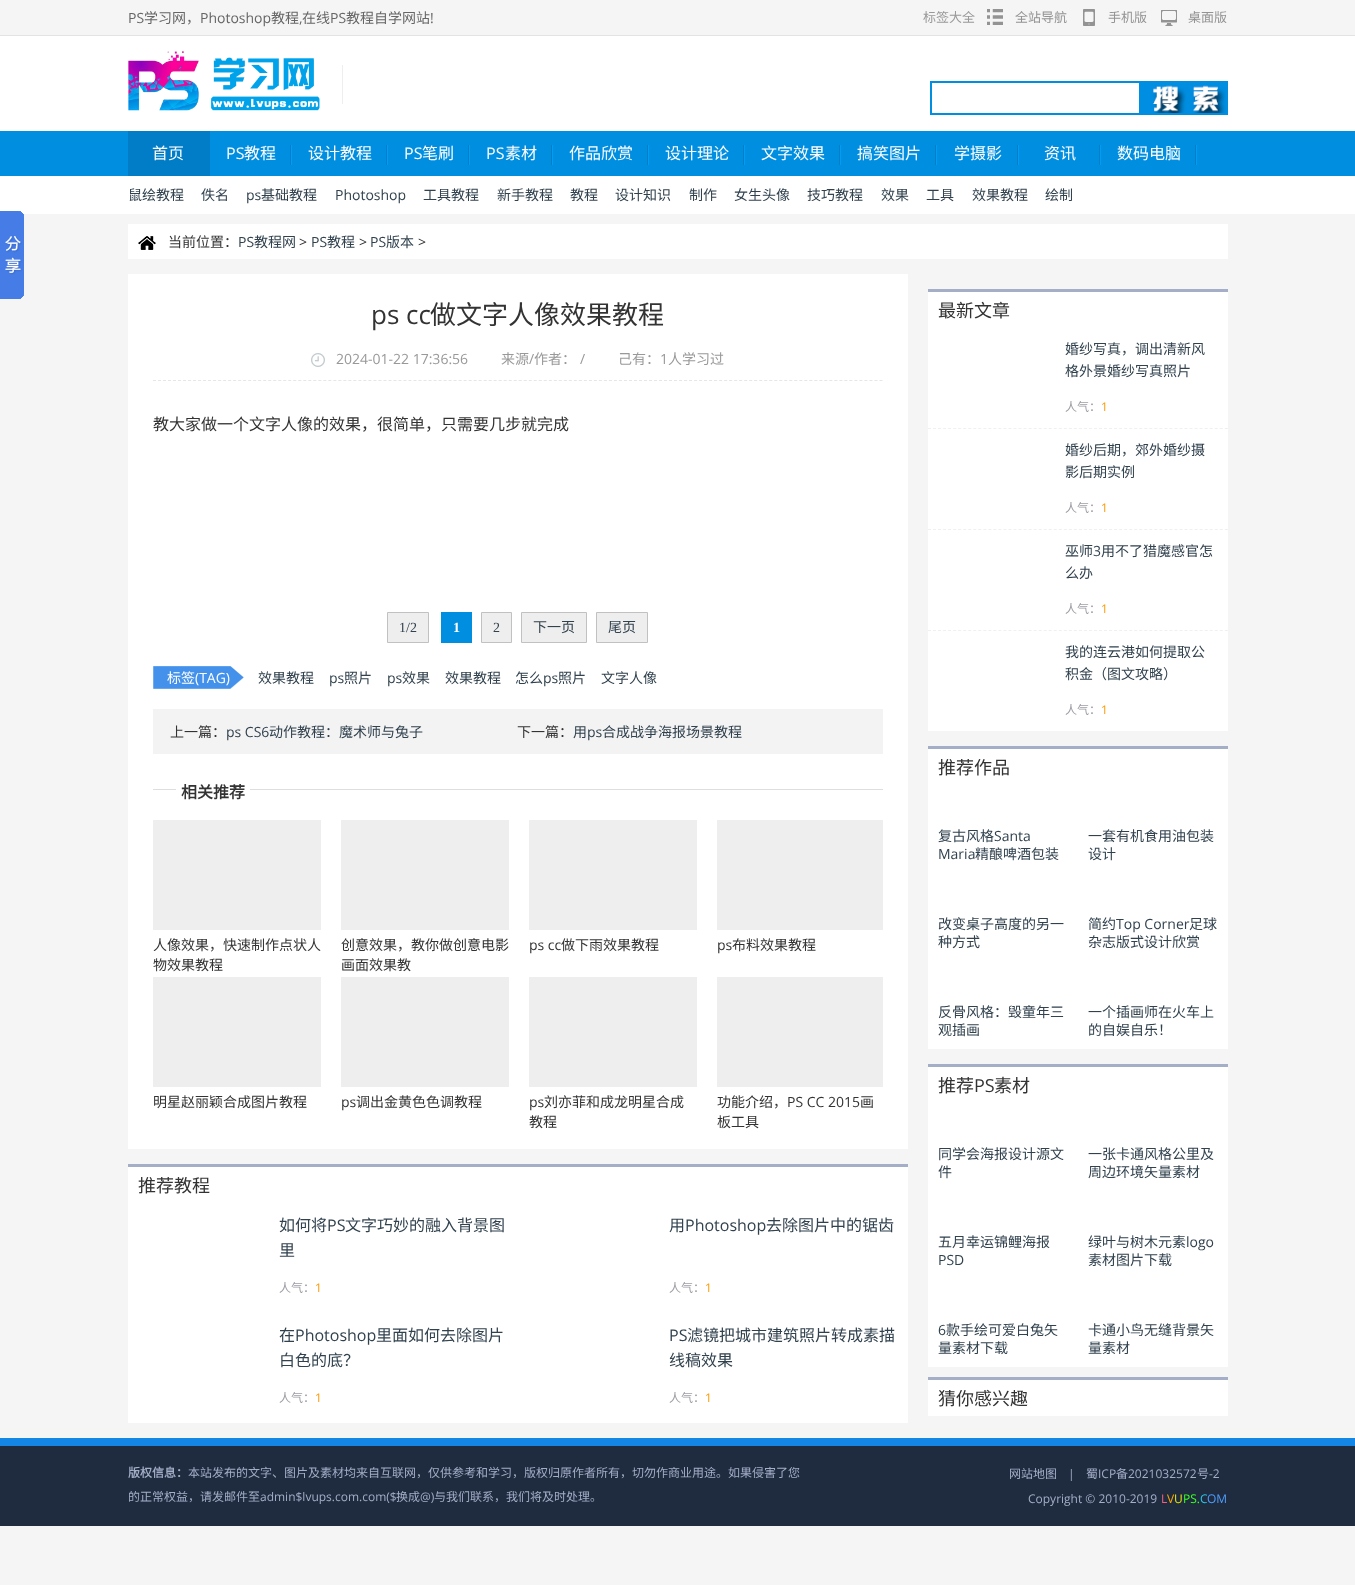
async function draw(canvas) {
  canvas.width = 1355
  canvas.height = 1585
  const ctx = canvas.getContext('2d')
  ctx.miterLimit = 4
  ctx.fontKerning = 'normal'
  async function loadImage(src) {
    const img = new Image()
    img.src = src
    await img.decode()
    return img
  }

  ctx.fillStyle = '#f5f5f5'
  ctx.fillRect(0, 0, 1355, 1585)
  ctx.fillStyle = '#e3e3e3'
  ctx.fillRect(0, 35, 1355, 1)
  ctx.font = '14px Open Sans'
  ctx.fillStyle = '#666'
  ctx.fillText('PS', 128, 23)
  ctx.font = '14px Noto Sans CJK SC'
  ctx.fillText('学习网，', 144, 23)
  ctx.font = '14px Open Sans'
  ctx.fillText('Photoshop', 200, 23)
  ctx.font = '14px Noto Sans CJK SC'
  ctx.fillText('教程', 271, 23)
  ctx.font = '14px Open Sans'
  ctx.fillText(',', 299, 23)
  ctx.font = '14px Noto Sans CJK SC'
  ctx.fillText('在线', 302, 23)
  ctx.font = '14px Open Sans'
  ctx.fillText('PS', 330, 23)
  ctx.font = '14px Noto Sans CJK SC'
  ctx.fillText('教程自学网站', 346, 23)
  ctx.font = '14px Open Sans'
  ctx.fillText('!', 430, 23)
  ctx.font = '13px Noto Sans CJK SC'
  ctx.fillStyle = '#999'
  ctx.fillText('标签大全', 923, 22)
  ctx.drawImage(await loadImage('image0.png'), 987, 9, 16, 16)
  ctx.fillStyle = '#939393'
  ctx.fillText('全站导航', 1015, 22)
  ctx.drawImage(await loadImage('image1.png'), 1083, 9, 12, 17)
  ctx.fillText('手机版', 1108, 22)
  ctx.drawImage(await loadImage('image2.png'), 1161, 10, 16, 16)
  ctx.fillText('桌面版', 1188, 22)
  ctx.fillStyle = '#fff'
  ctx.fillRect(0, 36, 1355, 178)
  ctx.drawImage(await loadImage('image3.png'), 128, 51, 192, 60)
  ctx.fillStyle = '#eee'
  ctx.fillRect(342, 65, 1, 39)
  ctx.strokeStyle = '#008ee1'
  ctx.lineWidth = 2
  ctx.strokeRect(931, 82, 209, 32)
  ctx.strokeRect(1142, 82, 85, 32)
  ctx.drawImage(await loadImage('image4.png'), 1143, 83, 83, 30)
  ctx.fillStyle = '#008ee1'
  ctx.fillRect(0, 131, 1355, 45)
  ctx.fillStyle = '#007dc6'
  ctx.fillRect(128, 131, 82, 45)
  ctx.font = '16px Noto Sans CJK SC'
  ctx.fillStyle = '#fff'
  ctx.fillText('首页', 152, 159)
  ctx.font = '16px Open Sans'
  ctx.fillText('PS', 226, 159)
  ctx.font = '16px Noto Sans CJK SC'
  ctx.fillText('教程', 244, 159)
  ctx.fillStyle = '#019cf6'
  ctx.fillRect(291, 145, 1, 20)
  ctx.fillStyle = '#027ec6'
  ctx.fillRect(290, 145, 1, 20)
  ctx.fillStyle = '#fff'
  ctx.fillText('设计教程', 308, 159)
  ctx.fillStyle = '#019cf6'
  ctx.fillRect(387, 145, 1, 20)
  ctx.fillStyle = '#027ec6'
  ctx.fillRect(386, 145, 1, 20)
  ctx.font = '16px Open Sans'
  ctx.fillStyle = '#fff'
  ctx.fillText('PS', 404, 159)
  ctx.font = '16px Noto Sans CJK SC'
  ctx.fillText('笔刷', 422, 159)
  ctx.fillStyle = '#019cf6'
  ctx.fillRect(469, 145, 1, 20)
  ctx.fillStyle = '#027ec6'
  ctx.fillRect(468, 145, 1, 20)
  ctx.font = '16px Open Sans'
  ctx.fillStyle = '#fff'
  ctx.fillText('PS', 486, 159)
  ctx.font = '16px Noto Sans CJK SC'
  ctx.fillText('素材', 505, 159)
  ctx.fillStyle = '#019cf6'
  ctx.fillRect(552, 145, 1, 20)
  ctx.fillStyle = '#027ec6'
  ctx.fillRect(551, 145, 1, 20)
  ctx.fillStyle = '#fff'
  ctx.fillText('作品欣赏', 569, 159)
  ctx.fillStyle = '#019cf6'
  ctx.fillRect(648, 145, 1, 20)
  ctx.fillStyle = '#027ec6'
  ctx.fillRect(647, 145, 1, 20)
  ctx.fillStyle = '#fff'
  ctx.fillText('设计理论', 665, 159)
  ctx.fillStyle = '#019cf6'
  ctx.fillRect(744, 145, 1, 20)
  ctx.fillStyle = '#027ec6'
  ctx.fillRect(743, 145, 1, 20)
  ctx.fillStyle = '#fff'
  ctx.fillText('文字效果', 761, 159)
  ctx.fillStyle = '#019cf6'
  ctx.fillRect(840, 145, 1, 20)
  ctx.fillStyle = '#027ec6'
  ctx.fillRect(839, 145, 1, 20)
  ctx.fillStyle = '#fff'
  ctx.fillText('搞笑图片', 857, 159)
  ctx.fillStyle = '#019cf6'
  ctx.fillRect(936, 145, 1, 20)
  ctx.fillStyle = '#027ec6'
  ctx.fillRect(935, 145, 1, 20)
  ctx.fillStyle = '#fff'
  ctx.fillText('学摄影', 954, 159)
  ctx.fillStyle = '#019cf6'
  ctx.fillRect(1018, 145, 1, 20)
  ctx.fillStyle = '#027ec6'
  ctx.fillRect(1017, 145, 1, 20)
  ctx.fillStyle = '#fff'
  ctx.fillText('资讯', 1044, 159)
  ctx.fillStyle = '#019cf6'
  ctx.fillRect(1100, 145, 1, 20)
  ctx.fillStyle = '#027ec6'
  ctx.fillRect(1099, 145, 1, 20)
  ctx.fillStyle = '#fff'
  ctx.fillText('数码电脑', 1117, 159)
  ctx.fillStyle = '#019cf6'
  ctx.fillRect(1196, 145, 1, 20)
  ctx.fillStyle = '#027ec6'
  ctx.fillRect(1195, 145, 1, 20)
  ctx.font = '14px Noto Sans CJK SC'
  ctx.fillStyle = '#31424e'
  ctx.fillText('鼠绘教程', 128, 200)
  ctx.fillText('佚名', 201, 200)
  ctx.font = '14px Open Sans'
  ctx.fillText('ps', 246, 200)
  ctx.font = '14px Noto Sans CJK SC'
  ctx.fillText('基础教程', 261, 200)
  ctx.font = '14px Open Sans'
  ctx.fillText('Photoshop', 335, 200)
  ctx.font = '14px Noto Sans CJK SC'
  ctx.fillText('工具教程', 423, 200)
  ctx.fillText('新手教程', 497, 200)
  ctx.fillText('教程', 570, 200)
  ctx.fillText('设计知识', 615, 200)
  ctx.fillText('制作', 689, 200)
  ctx.fillText('女生头像', 734, 200)
  ctx.fillText('技巧教程', 807, 200)
  ctx.fillText('效果', 881, 200)
  ctx.fillText('工具', 926, 200)
  ctx.fillText('效果教程', 972, 200)
  ctx.fillText('绘制', 1045, 200)
  ctx.drawImage(await loadImage('image5.png'), 0, 211, 24, 88)
  ctx.fillStyle = '#fff'
  ctx.fillRect(128, 224, 1100, 35)
  ctx.drawImage(await loadImage('image6.png'), 138, 236, 18, 14)
  ctx.fillStyle = '#333'
  ctx.fillText('当前位置：', 168, 247)
  ctx.font = '14px Open Sans'
  ctx.fillStyle = '#31424e'
  ctx.fillText('PS', 238, 247)
  ctx.font = '14px Noto Sans CJK SC'
  ctx.fillText('教程网', 254, 247)
  ctx.font = '14px Open Sans'
  ctx.fillStyle = '#333'
  ctx.fillText('>', 299, 247)
  ctx.fillStyle = '#31424e'
  ctx.fillText('PS', 311, 247)
  ctx.font = '14px Noto Sans CJK SC'
  ctx.fillText('教程', 327, 247)
  ctx.font = '14px Open Sans'
  ctx.fillStyle = '#333'
  ctx.fillText('>', 359, 247)
  ctx.fillStyle = '#31424e'
  ctx.fillText('PS', 370, 247)
  ctx.font = '14px Noto Sans CJK SC'
  ctx.fillText('版本', 386, 247)
  ctx.font = '14px Open Sans'
  ctx.fillStyle = '#333'
  ctx.fillText('>', 418, 247)
  ctx.fillStyle = '#fff'
  ctx.fillRect(128, 274, 780, 875)
  ctx.font = '26px Open Sans'
  ctx.fillStyle = '#333'
  ctx.fillText('ps cc', 371, 324)
  ctx.font = '26px Noto Sans CJK SC'
  ctx.fillText('做文字人像效果教程', 430, 324)
  ctx.beginPath()
  ctx.moveTo(153, 380.5)
  ctx.lineTo(883, 380.5)
  ctx.strokeStyle = '#e6e6e6'
  ctx.lineWidth = 1
  ctx.setLineDash([3, 2.01])
  ctx.stroke()
  ctx.drawImage(await loadImage('image7.png'), 311, 353, 14, 14)
  ctx.font = '14px Open Sans'
  ctx.fillStyle = '#999'
  ctx.fillText('2024-01-22 17:36:56', 336, 364)
  ctx.font = '14px Noto Sans CJK SC'
  ctx.fillText('来源', 501, 364)
  ctx.font = '14px Open Sans'
  ctx.fillText('/', 529, 364)
  ctx.font = '14px Noto Sans CJK SC'
  ctx.fillText('作者：', 534, 364)
  ctx.font = '14px Open Sans'
  ctx.fillText('/', 580, 364)
  ctx.font = '14px Noto Sans CJK SC'
  ctx.fillText('己有：', 618, 364)
  ctx.font = '14px Open Sans'
  ctx.fillText('1', 660, 364)
  ctx.font = '14px Noto Sans CJK SC'
  ctx.fillText('人学习过', 668, 364)
  ctx.font = '16px Noto Sans CJK SC'
  ctx.fillStyle = '#333'
  ctx.fillText('教大家做一个文字人像的效果，很简单，只需要几步就完成', 153, 430)
  ctx.fillStyle = '#eee'
  ctx.beginPath()
  ctx.rect(387.5, 612.5, 41, 30)
  ctx.fill()
  ctx.strokeStyle = '#c1c1c1'
  ctx.setLineDash([])
  ctx.stroke()
  ctx.font = '14px Liberation Serif'
  ctx.fillStyle = '#31424e'
  ctx.fillText('1/2', 399, 632)
  ctx.fillStyle = '#008ee1'
  ctx.fillRect(441, 612, 31, 31)
  ctx.font = 'bold 14px Liberation Serif'
  ctx.fillStyle = '#fff'
  ctx.fillText('1', 453, 632)
  ctx.fillStyle = '#eee'
  ctx.beginPath()
  ctx.rect(481.5, 612.5, 30, 30)
  ctx.fill()
  ctx.stroke()
  ctx.font = '14px Liberation Serif'
  ctx.fillStyle = '#31424e'
  ctx.fillText('2', 493, 632)
  ctx.fillStyle = '#eee'
  ctx.beginPath()
  ctx.rect(521.5, 612.5, 65, 30)
  ctx.fill()
  ctx.stroke()
  ctx.font = '14px Noto Sans CJK SC'
  ctx.fillStyle = '#31424e'
  ctx.fillText('下一页', 533, 632)
  ctx.fillStyle = '#eee'
  ctx.beginPath()
  ctx.rect(596.5, 612.5, 51, 30)
  ctx.fill()
  ctx.stroke()
  ctx.fillStyle = '#31424e'
  ctx.fillText('尾页', 608, 632)
  ctx.drawImage(await loadImage('image8.png'), 153, 666, 91, 23)
  ctx.fillStyle = '#fff'
  ctx.fillText('标签', 167, 683)
  ctx.font = '14px Open Sans'
  ctx.fillText('(TAG)', 195, 683)
  ctx.font = '14px Noto Sans CJK SC'
  ctx.fillStyle = '#31424e'
  ctx.fillText('效果教程', 258, 683)
  ctx.font = '14px Open Sans'
  ctx.fillText('ps', 329, 683)
  ctx.font = '14px Noto Sans CJK SC'
  ctx.fillText('照片', 344, 683)
  ctx.font = '14px Open Sans'
  ctx.fillText('ps', 387, 683)
  ctx.font = '14px Noto Sans CJK SC'
  ctx.fillText('效果', 402, 683)
  ctx.fillText('效果教程', 445, 683)
  ctx.fillText('怎么', 515, 683)
  ctx.font = '14px Open Sans'
  ctx.fillText('ps', 543, 683)
  ctx.font = '14px Noto Sans CJK SC'
  ctx.fillText('照片', 558, 683)
  ctx.fillText('文字人像', 601, 683)
  ctx.fillStyle = '#f3f3f3'
  ctx.fillRect(153, 709, 730, 45)
  ctx.fillStyle = '#333'
  ctx.fillText('上一篇：', 170, 737)
  ctx.font = '14px Open Sans'
  ctx.fillStyle = '#31424e'
  ctx.fillText('ps CS6', 226, 737)
  ctx.font = '14px Noto Sans CJK SC'
  ctx.fillText('动作教程：魔术师与兔子', 269, 737)
  ctx.fillStyle = '#333'
  ctx.fillText('下一篇：', 517, 737)
  ctx.fillStyle = '#31424e'
  ctx.fillText('用', 573, 737)
  ctx.font = '14px Open Sans'
  ctx.fillText('ps', 587, 737)
  ctx.font = '14px Noto Sans CJK SC'
  ctx.fillText('合成战争海报场景教程', 602, 737)
  ctx.fillStyle = '#dedede'
  ctx.fillRect(153, 789, 730, 1)
  ctx.fillStyle = '#fff'
  ctx.fillRect(176, 789, 74, 1)
  ctx.font = 'bold 16px Noto Sans CJK SC'
  ctx.fillStyle = '#333'
  ctx.fillText('相关推荐', 181, 798)
  ctx.fillStyle = '#eee'
  ctx.fillRect(153, 820, 168, 110)
  ctx.font = '14px Noto Sans CJK SC'
  ctx.fillStyle = '#333'
  ctx.fillText('人像效果，快速制作点状人', 153, 950)
  ctx.fillText('物效果教程', 153, 970)
  ctx.fillStyle = '#eee'
  ctx.fillRect(341, 820, 168, 110)
  ctx.fillStyle = '#333'
  ctx.fillText('创意效果，教你做创意电影', 341, 950)
  ctx.fillText('画面效果教', 341, 970)
  ctx.fillStyle = '#eee'
  ctx.fillRect(529, 820, 168, 110)
  ctx.font = '14px Open Sans'
  ctx.fillStyle = '#333'
  ctx.fillText('ps cc', 529, 950)
  ctx.font = '14px Noto Sans CJK SC'
  ctx.fillText('做下雨效果教程', 561, 950)
  ctx.fillStyle = '#eee'
  ctx.fillRect(717, 820, 166, 110)
  ctx.font = '14px Open Sans'
  ctx.fillStyle = '#333'
  ctx.fillText('ps', 717, 950)
  ctx.font = '14px Noto Sans CJK SC'
  ctx.fillText('布料效果教程', 732, 950)
  ctx.fillStyle = '#eee'
  ctx.fillRect(153, 977, 168, 110)
  ctx.fillStyle = '#333'
  ctx.fillText('明星赵丽颖合成图片教程', 153, 1107)
  ctx.fillStyle = '#eee'
  ctx.fillRect(341, 977, 168, 110)
  ctx.font = '14px Open Sans'
  ctx.fillStyle = '#333'
  ctx.fillText('ps', 341, 1107)
  ctx.font = '14px Noto Sans CJK SC'
  ctx.fillText('调出金黄色色调教程', 356, 1107)
  ctx.fillStyle = '#eee'
  ctx.fillRect(529, 977, 168, 110)
  ctx.font = '14px Open Sans'
  ctx.fillStyle = '#333'
  ctx.fillText('ps', 529, 1107)
  ctx.font = '14px Noto Sans CJK SC'
  ctx.fillText('刘亦菲和成龙明星合成', 544, 1107)
  ctx.fillText('教程', 529, 1127)
  ctx.fillStyle = '#eee'
  ctx.fillRect(717, 977, 166, 110)
  ctx.fillStyle = '#333'
  ctx.fillText('功能介绍，', 717, 1107)
  ctx.font = '14px Open Sans'
  ctx.fillText('PS CC 2015', 787, 1107)
  ctx.font = '14px Noto Sans CJK SC'
  ctx.fillText('画', 860, 1107)
  ctx.fillText('板工具', 717, 1127)
  ctx.fillStyle = '#fff'
  ctx.fillRect(128, 1167, 780, 256)
  ctx.fillStyle = '#a4aec7'
  ctx.fillRect(128, 1164, 780, 3)
  ctx.font = '18px Noto Sans CJK SC'
  ctx.fillStyle = '#333'
  ctx.fillText('推荐教程', 138, 1192)
  ctx.font = '16px Noto Sans CJK SC'
  ctx.fillStyle = '#31424e'
  ctx.fillText('如何将', 279, 1231)
  ctx.font = '16px Open Sans'
  ctx.fillText('PS', 327, 1231)
  ctx.font = '16px Noto Sans CJK SC'
  ctx.fillText('文字巧妙的融入背景图', 345, 1231)
  ctx.fillText('里', 279, 1256)
  ctx.font = '12px Noto Sans CJK SC'
  ctx.fillStyle = '#9d9da5'
  ctx.fillText('人气：', 279, 1292)
  ctx.font = '12px Open Sans'
  ctx.fillStyle = '#ff9901'
  ctx.fillText('1', 315, 1292)
  ctx.font = '16px Noto Sans CJK SC'
  ctx.fillStyle = '#31424e'
  ctx.fillText('用', 669, 1231)
  ctx.font = '16px Open Sans'
  ctx.fillText('Photoshop', 685, 1231)
  ctx.font = '16px Noto Sans CJK SC'
  ctx.fillText('去除图片中的锯齿', 766, 1231)
  ctx.font = '12px Noto Sans CJK SC'
  ctx.fillStyle = '#9d9da5'
  ctx.fillText('人气：', 669, 1292)
  ctx.font = '12px Open Sans'
  ctx.fillStyle = '#ff9901'
  ctx.fillText('1', 705, 1292)
  ctx.font = '16px Noto Sans CJK SC'
  ctx.fillStyle = '#31424e'
  ctx.fillText('在', 279, 1341)
  ctx.font = '16px Open Sans'
  ctx.fillText('Photoshop', 295, 1341)
  ctx.font = '16px Noto Sans CJK SC'
  ctx.fillText('里面如何去除图片', 376, 1341)
  ctx.fillText('白色的底？', 279, 1366)
  ctx.font = '12px Noto Sans CJK SC'
  ctx.fillStyle = '#9d9da5'
  ctx.fillText('人气：', 279, 1402)
  ctx.font = '12px Open Sans'
  ctx.fillStyle = '#ff9901'
  ctx.fillText('1', 315, 1402)
  ctx.font = '16px Open Sans'
  ctx.fillStyle = '#31424e'
  ctx.fillText('PS', 669, 1341)
  ctx.font = '16px Noto Sans CJK SC'
  ctx.fillText('滤镜把城市建筑照片转成素描', 687, 1341)
  ctx.fillText('线稿效果', 669, 1366)
  ctx.font = '12px Noto Sans CJK SC'
  ctx.fillStyle = '#9d9da5'
  ctx.fillText('人气：', 669, 1402)
  ctx.font = '12px Open Sans'
  ctx.fillStyle = '#ff9901'
  ctx.fillText('1', 705, 1402)
  ctx.fillStyle = '#fff'
  ctx.fillRect(928, 292, 300, 439)
  ctx.fillStyle = '#a4aec7'
  ctx.fillRect(928, 289, 300, 3)
  ctx.font = '18px Noto Sans CJK SC'
  ctx.fillStyle = '#333'
  ctx.fillText('最新文章', 938, 317)
  ctx.beginPath()
  ctx.moveTo(928, 428.5)
  ctx.lineTo(1228, 428.5)
  ctx.strokeStyle = '#f0f0f0'
  ctx.setLineDash([3, 2.03])
  ctx.stroke()
  ctx.font = '14px Noto Sans CJK SC'
  ctx.fillStyle = '#31424e'
  ctx.fillText('婚纱写真，调出清新风', 1065, 354)
  ctx.fillText('格外景婚纱写真照片', 1065, 376)
  ctx.font = '12px Noto Sans CJK SC'
  ctx.fillStyle = '#9d9da5'
  ctx.fillText('人气：', 1065, 411)
  ctx.font = '12px Open Sans'
  ctx.fillStyle = '#ff9901'
  ctx.fillText('1', 1101, 411)
  ctx.beginPath()
  ctx.moveTo(928, 529.5)
  ctx.lineTo(1228, 529.5)
  ctx.stroke()
  ctx.font = '14px Noto Sans CJK SC'
  ctx.fillStyle = '#31424e'
  ctx.fillText('婚纱后期，郊外婚纱摄', 1065, 455)
  ctx.fillText('影后期实例', 1065, 477)
  ctx.font = '12px Noto Sans CJK SC'
  ctx.fillStyle = '#9d9da5'
  ctx.fillText('人气：', 1065, 512)
  ctx.font = '12px Open Sans'
  ctx.fillStyle = '#ff9901'
  ctx.fillText('1', 1101, 512)
  ctx.beginPath()
  ctx.moveTo(928, 630.5)
  ctx.lineTo(1228, 630.5)
  ctx.stroke()
  ctx.font = '14px Noto Sans CJK SC'
  ctx.fillStyle = '#31424e'
  ctx.fillText('巫师', 1065, 556)
  ctx.font = '14px Open Sans'
  ctx.fillText('3', 1093, 556)
  ctx.font = '14px Noto Sans CJK SC'
  ctx.fillText('用不了猎魔感官怎', 1101, 556)
  ctx.fillText('么办', 1065, 578)
  ctx.font = '12px Noto Sans CJK SC'
  ctx.fillStyle = '#9d9da5'
  ctx.fillText('人气：', 1065, 613)
  ctx.font = '12px Open Sans'
  ctx.fillStyle = '#ff9901'
  ctx.fillText('1', 1101, 613)
  ctx.font = '14px Noto Sans CJK SC'
  ctx.fillStyle = '#31424e'
  ctx.fillText('我的连云港如何提取公', 1065, 657)
  ctx.fillText('积金（图文攻略）', 1065, 679)
  ctx.font = '12px Noto Sans CJK SC'
  ctx.fillStyle = '#9d9da5'
  ctx.fillText('人气：', 1065, 714)
  ctx.font = '12px Open Sans'
  ctx.fillStyle = '#ff9901'
  ctx.fillText('1', 1101, 714)
  ctx.fillStyle = '#fff'
  ctx.fillRect(928, 749, 300, 300)
  ctx.fillStyle = '#a4aec7'
  ctx.fillRect(928, 746, 300, 3)
  ctx.font = '18px Noto Sans CJK SC'
  ctx.fillStyle = '#333'
  ctx.fillText('推荐作品', 938, 774)
  ctx.font = '14px Noto Sans CJK SC'
  ctx.fillStyle = '#31424e'
  ctx.fillText('复古风格', 938, 841)
  ctx.font = '14px Open Sans'
  ctx.fillText('Santa', 994, 841)
  ctx.fillText('Maria', 938, 859)
  ctx.font = '14px Noto Sans CJK SC'
  ctx.fillText('精酿啤酒包装', 975, 859)
  ctx.fillText('一套有机食用油包装', 1088, 841)
  ctx.fillText('设计', 1088, 859)
  ctx.fillText('改变桌子高度的另一', 938, 929)
  ctx.fillText('种方式', 938, 947)
  ctx.fillText('简约', 1088, 929)
  ctx.font = '14px Open Sans'
  ctx.fillText('Top Corner', 1116, 929)
  ctx.font = '14px Noto Sans CJK SC'
  ctx.fillText('足球', 1189, 929)
  ctx.fillText('杂志版式设计欣赏', 1088, 947)
  ctx.fillText('反骨风格：毁童年三', 938, 1017)
  ctx.fillText('观插画', 938, 1035)
  ctx.fillText('一个插画师在火车上', 1088, 1017)
  ctx.fillText('的自娱自乐！', 1088, 1035)
  ctx.fillStyle = '#fff'
  ctx.fillRect(928, 1067, 300, 300)
  ctx.fillStyle = '#a4aec7'
  ctx.fillRect(928, 1064, 300, 3)
  ctx.font = '18px Noto Sans CJK SC'
  ctx.fillStyle = '#333'
  ctx.fillText('推荐', 938, 1092)
  ctx.font = '18px Open Sans'
  ctx.fillText('PS', 974, 1092)
  ctx.font = '18px Noto Sans CJK SC'
  ctx.fillText('素材', 994, 1092)
  ctx.font = '14px Noto Sans CJK SC'
  ctx.fillStyle = '#31424e'
  ctx.fillText('同学会海报设计源文', 938, 1159)
  ctx.fillText('件', 938, 1177)
  ctx.fillText('一张卡通风格公里及', 1088, 1159)
  ctx.fillText('周边环境矢量素材', 1088, 1177)
  ctx.fillText('五月幸运锦鲤海报', 938, 1247)
  ctx.font = '14px Open Sans'
  ctx.fillText('PSD', 938, 1265)
  ctx.font = '14px Noto Sans CJK SC'
  ctx.fillText('绿叶与树木元素', 1088, 1247)
  ctx.font = '14px Open Sans'
  ctx.fillText('logo', 1186, 1247)
  ctx.font = '14px Noto Sans CJK SC'
  ctx.fillText('素材图片下载', 1088, 1265)
  ctx.font = '14px Open Sans'
  ctx.fillText('6', 938, 1335)
  ctx.font = '14px Noto Sans CJK SC'
  ctx.fillText('款手绘可爱白兔矢', 946, 1335)
  ctx.fillText('量素材下载', 938, 1353)
  ctx.fillText('卡通小鸟无缝背景矢', 1088, 1335)
  ctx.fillText('量素材', 1088, 1353)
  ctx.fillStyle = '#fff'
  ctx.fillRect(928, 1380, 300, 36)
  ctx.fillStyle = '#a4aec7'
  ctx.fillRect(928, 1377, 300, 3)
  ctx.font = '18px Noto Sans CJK SC'
  ctx.fillStyle = '#333'
  ctx.fillText('猜你感兴趣', 938, 1405)
  ctx.fillStyle = '#1f2c40'
  ctx.fillRect(0, 1446, 1355, 80)
  ctx.fillStyle = '#1487e6'
  ctx.fillRect(0, 1438, 1355, 8)
  ctx.font = 'bold 12px Noto Sans CJK SC'
  ctx.fillStyle = '#a4aec7'
  ctx.fillText('版权信息：', 128, 1477)
  ctx.font = '12px Noto Sans CJK SC'
  ctx.fillText('本站发布的文字、图片及素材均来自互联网，仅供参考和学习，版权归原作者所有，切勿作商业用途。如果侵害了您', 188, 1477)
  ctx.fillText('的正常权益，请发邮件至', 128, 1501)
  ctx.font = '12px Open Sans'
  ctx.fillText('admin$lvups.com.com($', 260, 1501)
  ctx.font = '12px Noto Sans CJK SC'
  ctx.fillText('换成', 396, 1501)
  ctx.font = '12px Open Sans'
  ctx.fillText('@)', 420, 1501)
  ctx.font = '12px Noto Sans CJK SC'
  ctx.fillText('与我们联系，我们将及时处理。', 434, 1501)
  ctx.fillText('网站地图', 1009, 1478)
  ctx.font = '12px Open Sans'
  ctx.fillText('|', 1068, 1478)
  ctx.font = '12px Noto Sans CJK SC'
  ctx.fillText('蜀', 1086, 1478)
  ctx.font = '12px Open Sans'
  ctx.fillText('ICP', 1098, 1478)
  ctx.font = '12px Noto Sans CJK SC'
  ctx.fillText('备', 1116, 1478)
  ctx.font = '12px Open Sans'
  ctx.fillText('2021032572', 1128, 1478)
  ctx.font = '12px Noto Sans CJK SC'
  ctx.fillText('号', 1197, 1478)
  ctx.font = '12px Open Sans'
  ctx.fillText('-2', 1209, 1478)
  ctx.fillText('Copyright © 2010-2019', 1028, 1503)
  ctx.fillStyle = '#f1607d'
  ctx.fillText('L', 1161, 1503)
  ctx.fillStyle = '#ffa500'
  ctx.fillText('V', 1167, 1503)
  ctx.fillStyle = '#e5e802'
  ctx.fillText('U', 1174, 1503)
  ctx.fillStyle = '#3bff23'
  ctx.fillText('PS.', 1183, 1503)
  ctx.fillStyle = '#29c8ec'
  ctx.fillText('C', 1200, 1503)
  ctx.fillStyle = '#4f9cfa'
  ctx.fillText('OM', 1207, 1503)
}

draw(document.querySelector('canvas'))
